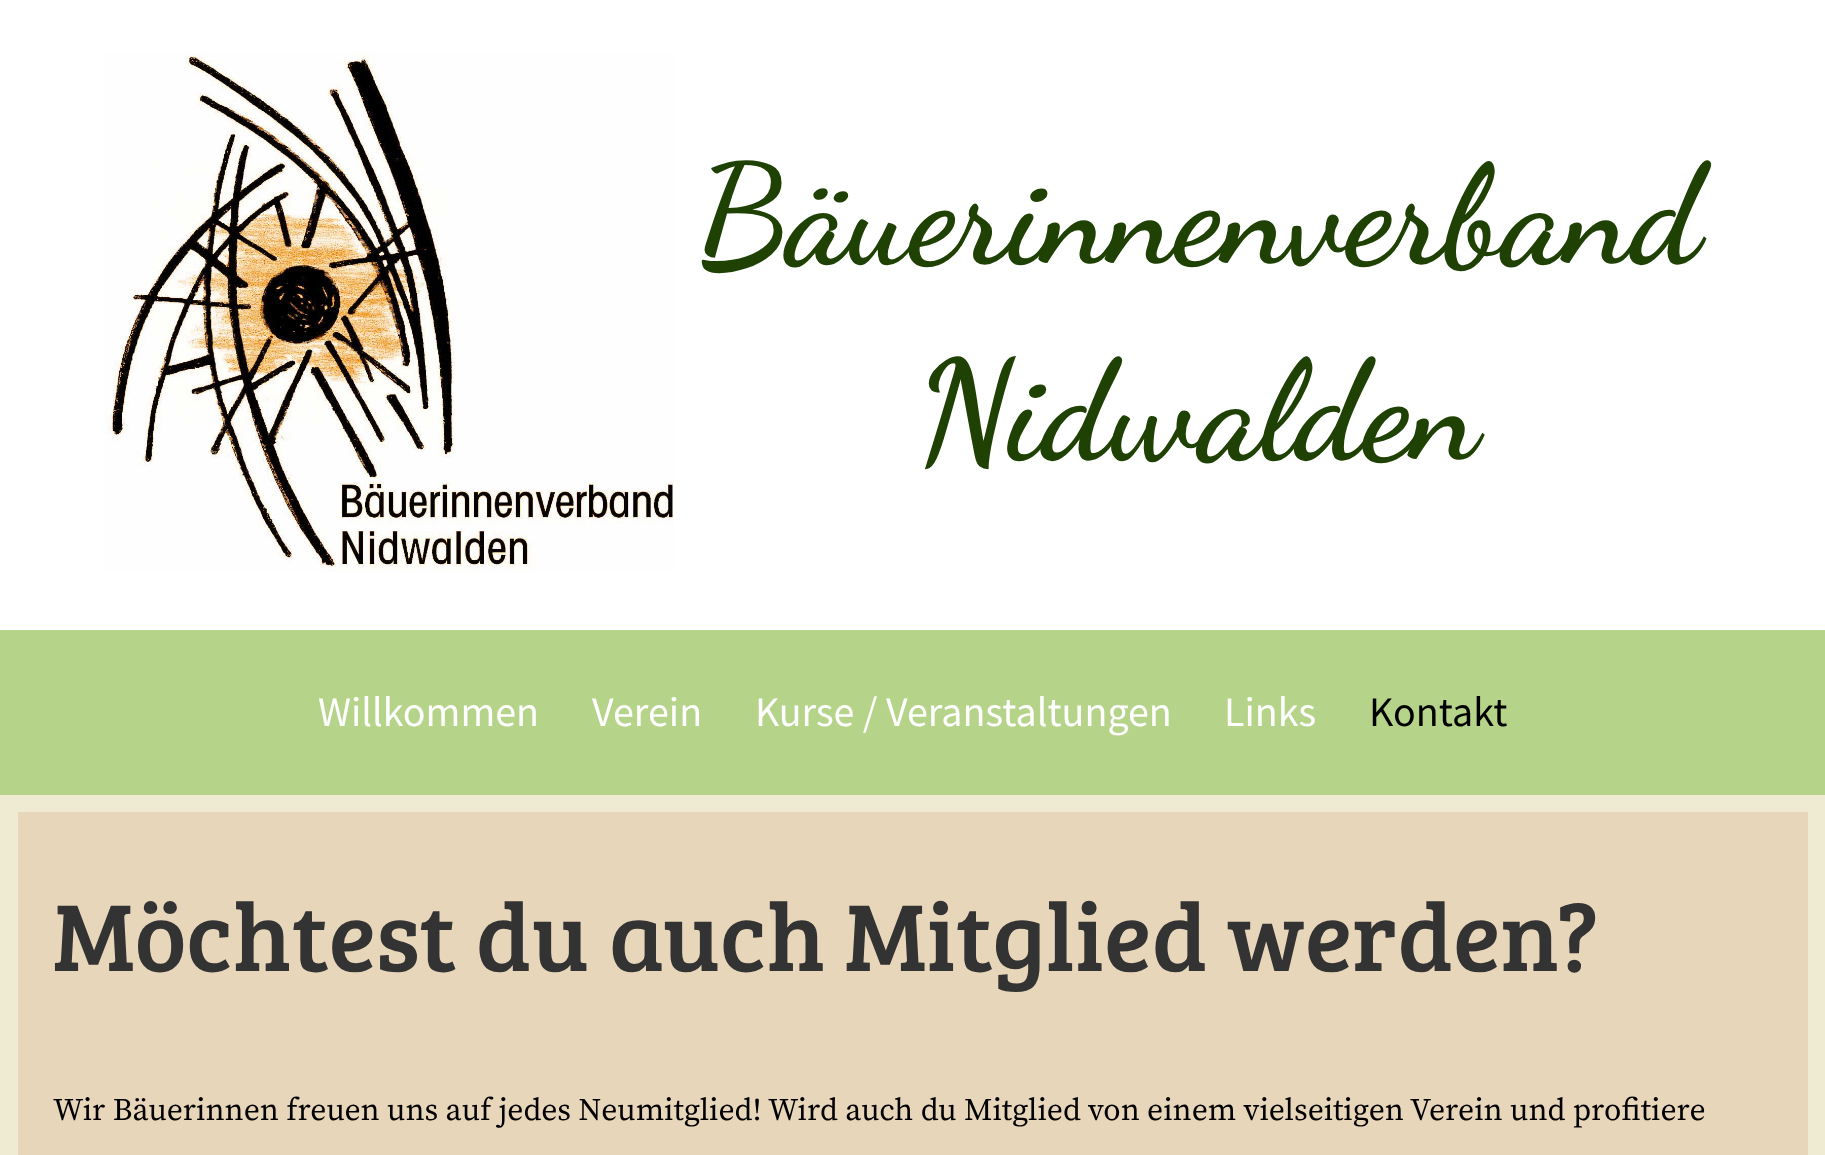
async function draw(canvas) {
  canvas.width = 1825
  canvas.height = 1155
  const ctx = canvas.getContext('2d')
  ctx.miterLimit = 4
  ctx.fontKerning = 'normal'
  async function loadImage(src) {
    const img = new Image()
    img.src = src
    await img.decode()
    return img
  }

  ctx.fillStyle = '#fff'
  ctx.fillRect(0, 0, 1825, 1155)
  ctx.drawImage(await loadImage('image0.png'), 105, 52, 569, 520)
  ctx.font = 'bold 140px Dancing Script'
  ctx.fillStyle = '#1f4104'
  ctx.fillText('Bäuerinnenverband', 696, 261)
  ctx.fillText('Nidwalden', 917, 457)
  ctx.fillStyle = '#b5d389'
  ctx.fillRect(0, 630, 1825, 165)
  ctx.font = '42px Source Sans Pro'
  ctx.fillStyle = '#fff'
  ctx.fillText('Willkommen', 318, 726)
  ctx.fillText('Verein', 592, 726)
  ctx.fillText('Kurse / Veranstaltungen', 755, 726)
  ctx.fillText('Links', 1224, 726)
  ctx.fillStyle = '#000'
  ctx.fillText('Kontakt', 1369, 726)
  ctx.fillStyle = '#efead2'
  ctx.fillRect(0, 795, 1825, 360)
  ctx.fillStyle = '#e8d6ba'
  ctx.fillRect(18, 812, 1790, 343)
  ctx.font = '98px Bree Serif'
  ctx.fillStyle = '#333'
  ctx.fillText('Möchtest du auch Mitglied werden?', 53, 971)
  ctx.font = '31.5px Source Serif Pro'
  ctx.fillStyle = '#000'
  ctx.fillText('Wir Bäuerinnen freuen uns auf jedes Neumitglied! Wird auch du Mitglied von einem vielseitigen Verein und profitiere', 53, 1120)
}

draw(document.querySelector('canvas'))
